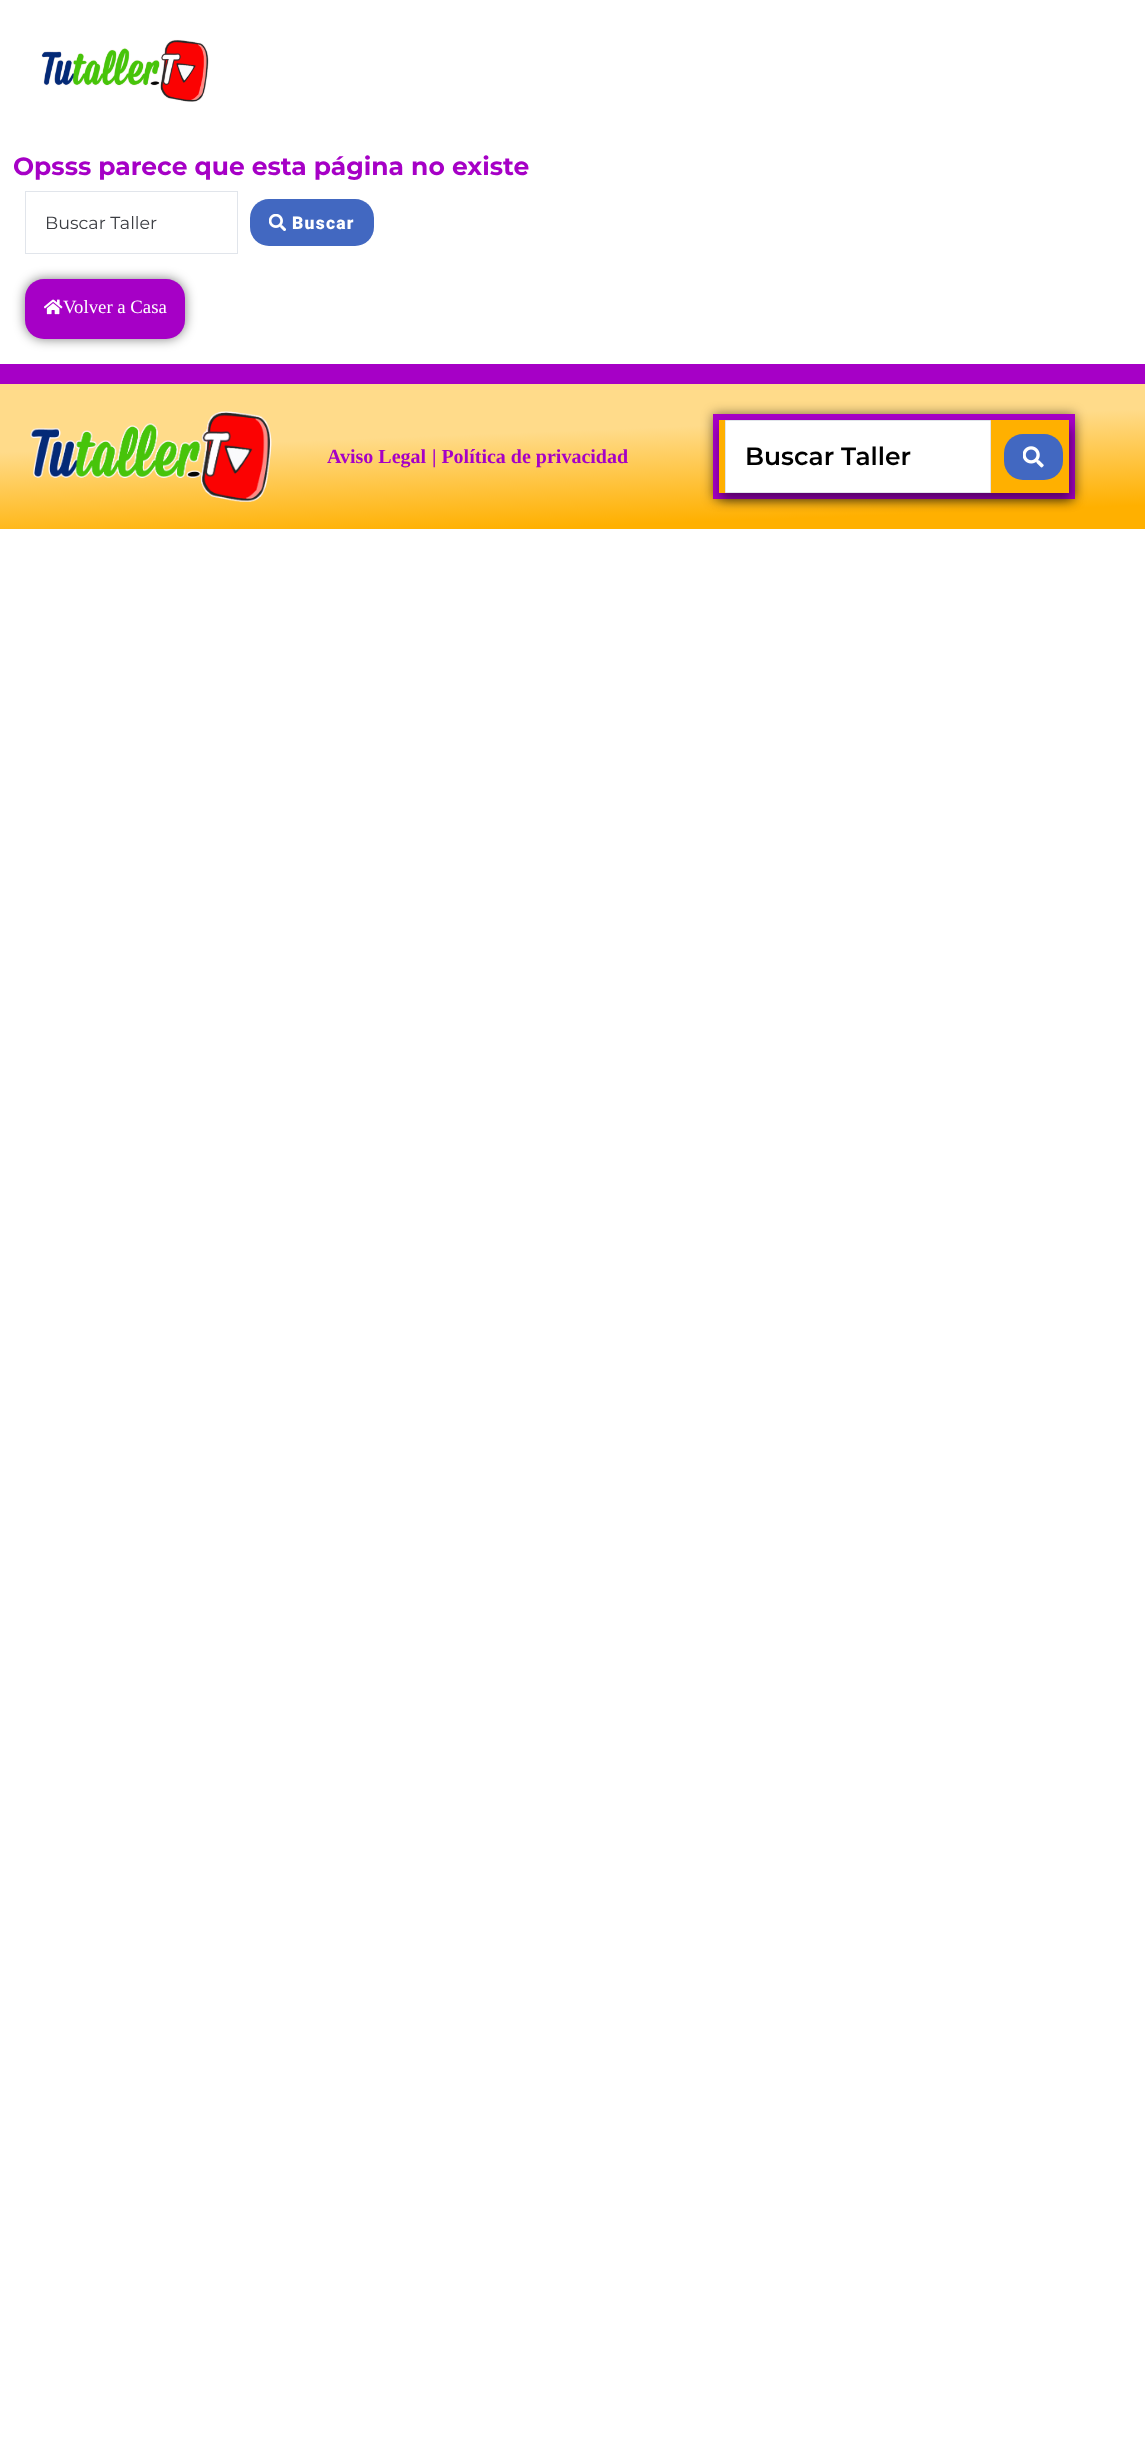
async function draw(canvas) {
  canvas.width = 1145
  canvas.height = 2452
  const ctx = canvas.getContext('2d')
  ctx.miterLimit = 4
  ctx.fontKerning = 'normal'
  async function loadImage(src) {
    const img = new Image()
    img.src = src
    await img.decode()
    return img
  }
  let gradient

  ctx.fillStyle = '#fff'
  ctx.fillRect(0, 0, 1145, 2452)
  ctx.drawImage(await loadImage('image0.png'), 41, 39, 168, 63)
  ctx.font = 'bold 25px Montserrat'
  ctx.fillStyle = '#a600c6'
  ctx.fillText('Opsss parece que esta página no existe', 13, 175)
  ctx.strokeStyle = '#e1e5eb'
  ctx.strokeRect(25.5, 191.5, 212, 62)
  ctx.font = '17.5px Montserrat'
  ctx.fillStyle = '#3b3d42'
  ctx.fillText('Buscar Taller', 45, 229)
  ctx.fillStyle = '#4268c1'
  ctx.beginPath()
  ctx.roundRect(250, 199, 124, 47, 19)
  ctx.fill()
  ctx.drawImage(await loadImage('image1.png'), 269, 214, 17, 17)
  ctx.letterSpacing = '1.25px'
  ctx.font = '900 17.5px Roboto'
  ctx.fillStyle = '#fff'
  ctx.fillText('Buscar', 292, 229)
  ctx.fillStyle = '#00000080'
  ctx.filter = 'blur(6px)'
  ctx.beginPath()
  ctx.roundRect(25, 279, 160, 60, 19)
  ctx.fill()
  ctx.filter = 'none'
  ctx.fillStyle = '#a600c6'
  ctx.beginPath()
  ctx.roundRect(25, 279, 160, 60, 19)
  ctx.fill()
  ctx.letterSpacing = '0px'
  ctx.font = '18.75px Liberation Serif'
  ctx.fillStyle = '#fff'
  ctx.fillText('Volver a Casa', 63, 313)
  ctx.drawImage(await loadImage('image2.png'), 44, 299, 19, 16)
  ctx.fillStyle = '#a600c6'
  ctx.fillRect(0, 364, 1145, 20)
  gradient = ctx.createLinearGradient(569, 364, 576, 549)
  gradient.addColorStop(0.36, '#ffdb8a')
  gradient.addColorStop(0.88, '#ffb000')
  ctx.fillStyle = gradient
  ctx.fillRect(0, 384, 1145, 145)
  ctx.drawImage(await loadImage('image3.png'), 30, 411, 242, 91)
  ctx.font = 'bold 20px Liberation Serif'
  ctx.fillStyle = '#a600c6'
  ctx.fillText('Aviso Legal', 327, 463)
  ctx.fillText('| Política de privacidad', 432, 463)
  ctx.fillStyle = '#00000080'
  ctx.filter = 'blur(6px)'
  ctx.beginPath()
  ctx.rect(713, 414, 362, 85)
  ctx.fill()
  ctx.filter = 'none'
  ctx.strokeStyle = '#a600c6'
  ctx.lineWidth = 6
  ctx.strokeRect(716, 417, 356, 79)
  ctx.filter = 'blur(6px)'
  ctx.beginPath()
  ctx.rect(721, 428, 350, 72)
  ctx.fill()
  ctx.filter = 'none'
  ctx.fillStyle = '#ffb000'
  ctx.fillRect(719, 420, 350, 73)
  ctx.fillStyle = '#fff'
  ctx.beginPath()
  ctx.rect(725.5, 420.5, 265, 72)
  ctx.fill()
  ctx.strokeStyle = '#e1e5eb'
  ctx.lineWidth = 1
  ctx.stroke()
  ctx.font = '600 25px Montserrat'
  ctx.fillStyle = '#000'
  ctx.fillText('Buscar Taller', 745, 465)
  ctx.fillStyle = '#4268c1'
  ctx.beginPath()
  ctx.roundRect(1004, 434, 59, 46, 19)
  ctx.fill()
  ctx.drawImage(await loadImage('image4.png'), 1023, 446, 21, 22)
}

draw(document.querySelector('canvas'))
